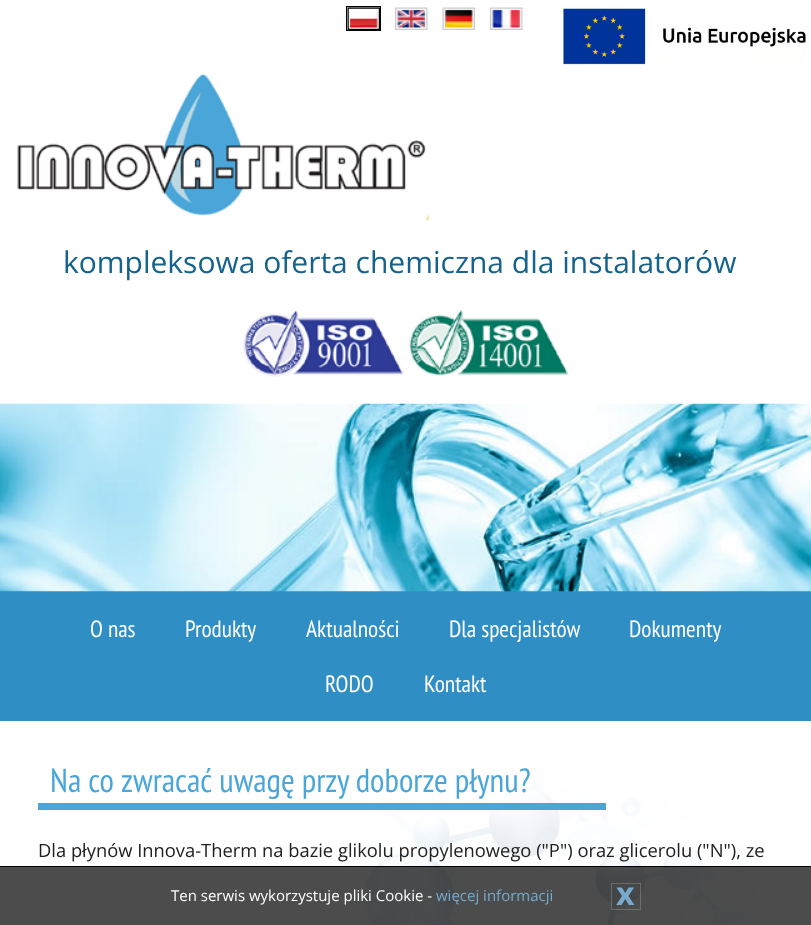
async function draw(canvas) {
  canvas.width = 811
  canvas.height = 925
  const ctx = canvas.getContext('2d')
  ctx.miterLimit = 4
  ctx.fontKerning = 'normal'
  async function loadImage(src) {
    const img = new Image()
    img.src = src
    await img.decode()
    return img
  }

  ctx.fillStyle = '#fff'
  ctx.fillRect(0, 0, 811, 925)
  ctx.drawImage(await loadImage('image0.png'), 347, 7, 33, 23)
  ctx.strokeStyle = '#000'
  ctx.strokeRect(346.5, 6.5, 34, 24)
  ctx.drawImage(await loadImage('image1.png'), 395, 7, 33, 23)
  ctx.drawImage(await loadImage('image2.png'), 442, 7, 33, 23)
  ctx.drawImage(await loadImage('image3.png'), 490, 7, 33, 23)
  ctx.drawImage(await loadImage('image4.png'), 561, 6, 245, 61)
  ctx.drawImage(await loadImage('image5.png'), 17, 73, 412, 147)
  ctx.font = '30px Open Sans'
  ctx.fillStyle = '#15628c'
  ctx.fillText('kompleksowa oferta chemiczna dla instalatorów', 63, 273)
  ctx.drawImage(await loadImage('image6.png'), 242, 310, 327, 67)
  ctx.fillStyle = '#2f8ec3'
  ctx.fillRect(0, 591, 811, 130)
  ctx.drawImage(await loadImage('image7.png'), 0, 403, 811, 189)
  ctx.font = '23.5px PT Sans Narrow'
  ctx.fillStyle = '#fff'
  ctx.fillText('O nas', 90, 637)
  ctx.fillText('Produkty', 185, 637)
  ctx.fillText('Aktualności', 306, 637)
  ctx.fillText('Dla specjalistów', 449, 637)
  ctx.fillText('Dokumenty', 629, 637)
  ctx.fillText('RODO', 325, 692)
  ctx.fillText('Kontakt', 424, 692)
  ctx.drawImage(await loadImage('image8.png'), 345, 782, 409, 143)
  ctx.fillStyle = '#4aa6d9'
  ctx.fillRect(38, 803, 568, 7)
  ctx.font = '33.3px PT Sans Narrow'
  ctx.fillText('Na co zwracać uwagę przy doborze płynu?', 50, 792)
  ctx.font = '18.35px Open Sans'
  ctx.fillStyle = '#202020'
  ctx.fillText('Dla płynów Innova-Therm na bazie glikolu propylenowego ("P") oraz glicerolu ("N"), ze', 38, 857)
  ctx.fillStyle = '#000000b3'
  ctx.fillRect(0, 867, 811, 58)
  ctx.fillStyle = '#000'
  ctx.fillRect(0, 866, 811, 1)
  ctx.font = '15px Open Sans'
  ctx.fillStyle = '#fff'
  ctx.fillText('Ten serwis wykorzystuje pliki Cookie -', 171, 901)
  ctx.fillStyle = '#7ac'
  ctx.fillText('więcej informacji', 436, 901)
  ctx.strokeStyle = '#ffffff33'
  ctx.strokeRect(611.5, 883.5, 29, 26)
  ctx.font = 'bold 32px Open Sans'
  ctx.fillText('x', 616, 905)
}

draw(document.querySelector('canvas'))
